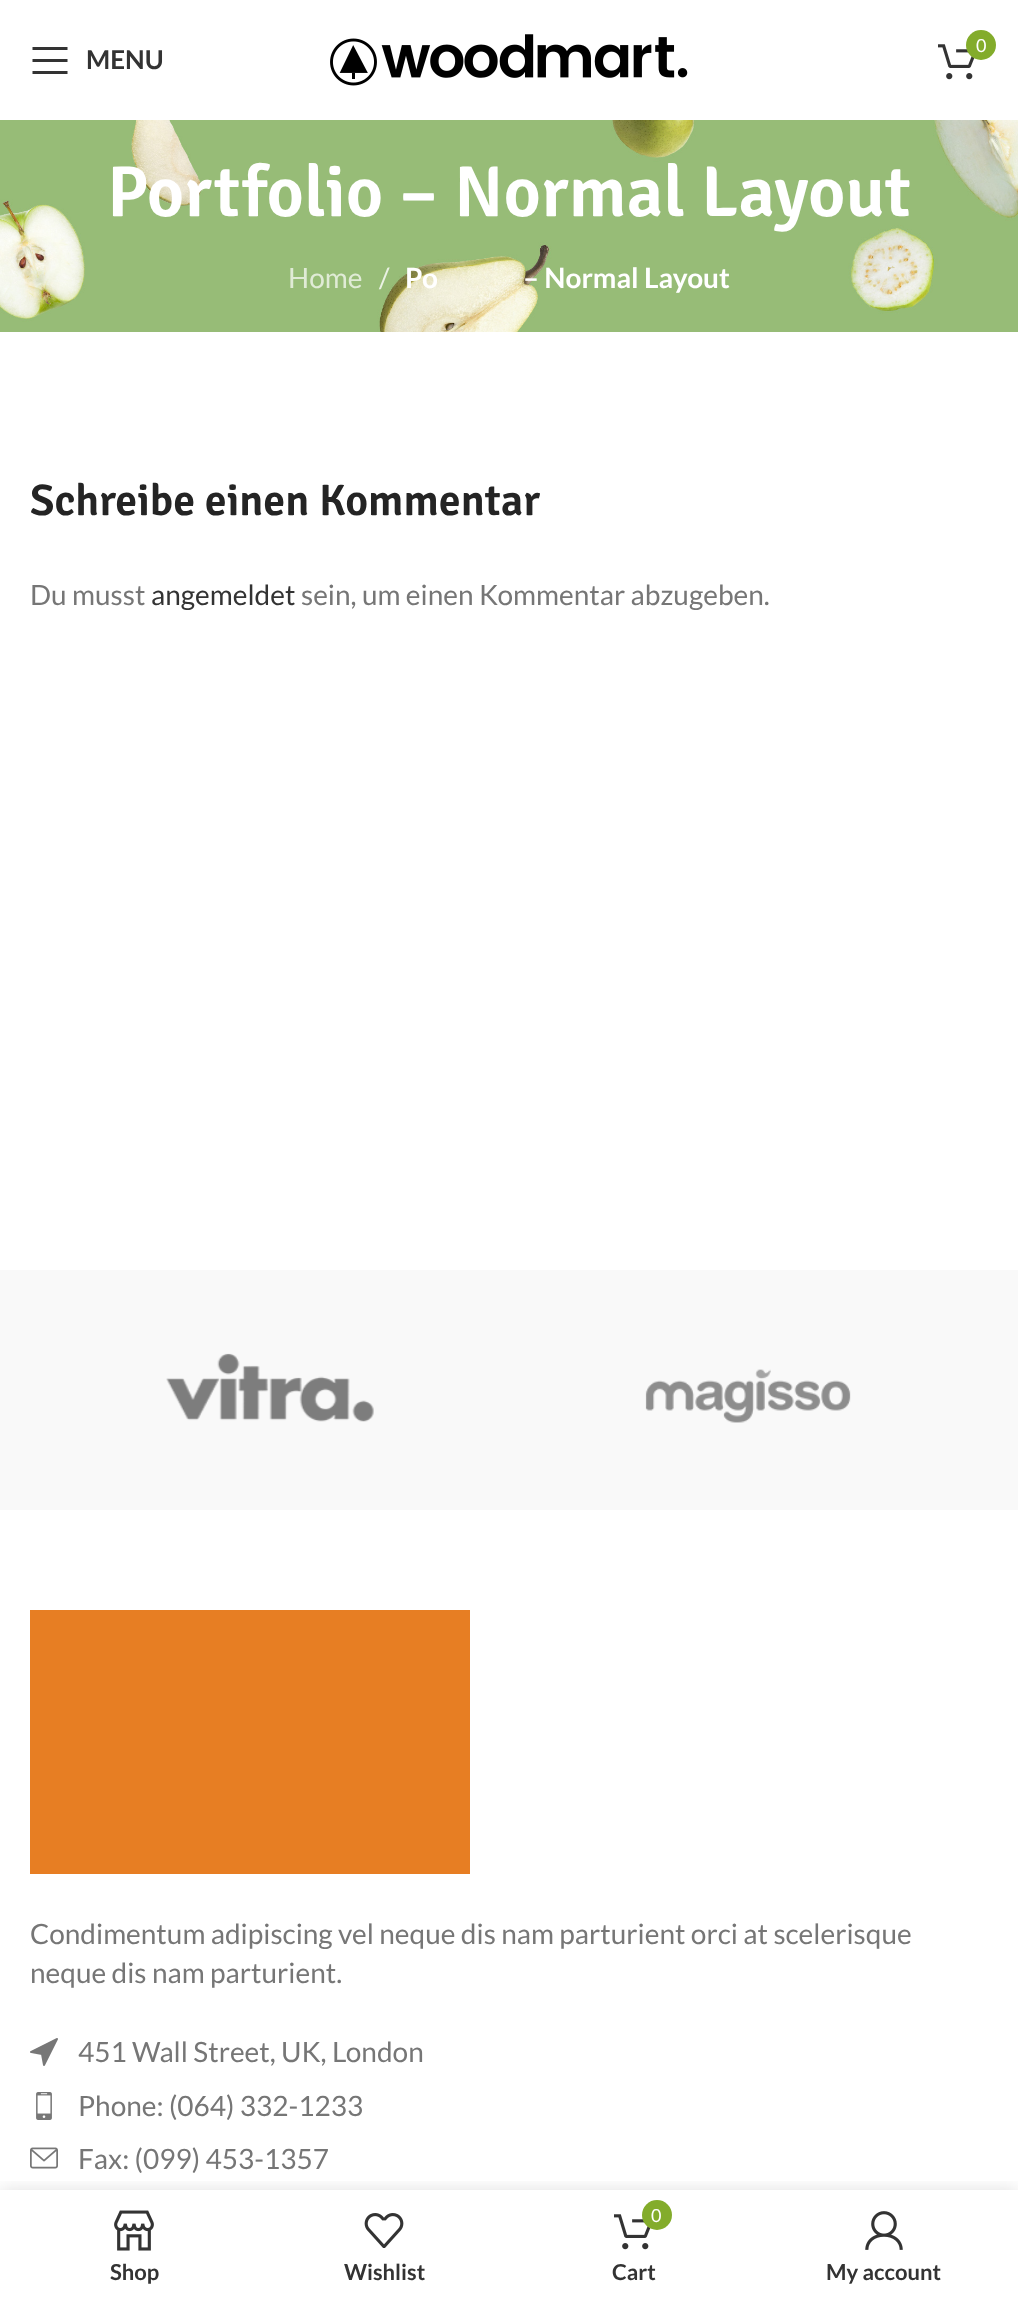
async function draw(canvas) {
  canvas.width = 1018
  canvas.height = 2300
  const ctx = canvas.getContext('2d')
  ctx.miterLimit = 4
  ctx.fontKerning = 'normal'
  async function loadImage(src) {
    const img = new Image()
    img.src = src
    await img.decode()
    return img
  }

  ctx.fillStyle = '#fff'
  ctx.fillRect(0, 0, 1018, 2300)
  ctx.drawImage(await loadImage('image0.png'), 330, 34, 358, 52)
  ctx.drawImage(await loadImage('image1.png'), 938, 44, 37, 36)
  ctx.fillStyle = '#83ac2b'
  ctx.beginPath()
  ctx.arc(981, 45, 15, 0, 2 * Math.PI)
  ctx.fill()
  ctx.font = '18px Lato'
  ctx.fillStyle = '#fff'
  ctx.fillText('0', 976, 52)
  ctx.fillStyle = '#333'
  ctx.beginPath()
  ctx.moveTo(32.5, 50)
  ctx.lineTo(67.5, 50)
  ctx.lineTo(67.5, 47)
  ctx.lineTo(32.5, 47)
  ctx.closePath()
  ctx.moveTo(32.5, 62)
  ctx.lineTo(67.5, 62)
  ctx.lineTo(67.5, 59)
  ctx.lineTo(32.5, 59)
  ctx.closePath()
  ctx.moveTo(32.5, 74)
  ctx.lineTo(67.5, 74)
  ctx.lineTo(67.5, 71)
  ctx.lineTo(32.5, 71)
  ctx.closePath()
  ctx.fill()
  ctx.font = 'bold 26px Lato'
  ctx.fillText('MENU', 86, 69)
  ctx.drawImage(await loadImage('image2.png'), 0, 120, 1018, 212)
  ctx.font = '600 72px Signika'
  ctx.fillStyle = '#fff'
  ctx.fillText('Portfolio – Normal Layout', 107, 216)
  ctx.font = '28px Lato'
  ctx.fillStyle = '#e0ebd6'
  ctx.fillText('Home', 288, 288)
  ctx.fillStyle = '#eaf2e4'
  ctx.fillText('/', 379, 288)
  ctx.font = 'bold 28px Lato'
  ctx.fillStyle = '#fff'
  ctx.fillText('Po', 405, 288)
  ctx.fillText('– Normal Layout', 523, 288)
  ctx.font = '600 44px Signika'
  ctx.fillStyle = '#242424'
  ctx.fillText('Schreibe einen Kommentar', 30, 515)
  ctx.font = '28px Lato'
  ctx.fillStyle = '#767676'
  ctx.fillText('Du musst', 30, 605)
  ctx.fillStyle = '#333'
  ctx.fillText('angemeldet', 151, 605)
  ctx.fillStyle = '#767676'
  ctx.fillText('sein, um einen Kommentar abzugeben.', 301, 605)
  ctx.fillStyle = '#f9f9f9'
  ctx.fillRect(0, 1270, 1018, 240)
  ctx.drawImage(await loadImage('image3.png'), 166, 1353, 208, 69)
  ctx.drawImage(await loadImage('image4.png'), 645, 1369, 206, 54)
  ctx.fillStyle = '#e77e23'
  ctx.fillRect(30, 1610, 440, 264)
  ctx.fillStyle = '#767676'
  ctx.fillText('Condimentum adipiscing vel neque dis nam parturient orci at scelerisque', 30, 1944)
  ctx.fillText('neque dis nam parturient.', 30, 1983)
  ctx.drawImage(await loadImage('image5.png'), 30, 2038, 28, 28)
  ctx.fillText('451 Wall Street, UK, London', 78, 2062)
  ctx.drawImage(await loadImage('image6.png'), 36, 2092, 16, 28)
  ctx.fillText('Phone: (064) 332-1233', 78, 2116)
  ctx.drawImage(await loadImage('image7.png'), 30, 2147, 28, 22)
  ctx.fillText('Fax: (099) 453-1357', 78, 2169)
  ctx.save()
  ctx.beginPath()
  ctx.rect(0, 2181, 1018, 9)
  ctx.clip()
  ctx.fillStyle = '#0000001f'
  ctx.filter = 'blur(9px)'
  ctx.beginPath()
  ctx.rect(0, 2190, 1018, 110)
  ctx.fill()
  ctx.filter = 'none'
  ctx.restore()
  ctx.drawImage(await loadImage('image8.png'), 114, 2210, 40, 41)
  ctx.font = 'bold 22px Lato'
  ctx.fillStyle = '#333'
  ctx.fillText('Shop', 110, 2280)
  ctx.drawImage(await loadImage('image9.png'), 364, 2213, 40, 35)
  ctx.fillText('Wishlist', 344, 2280)
  ctx.drawImage(await loadImage('image1.png'), 614, 2214, 37, 36)
  ctx.fillStyle = '#83ac2b'
  ctx.beginPath()
  ctx.arc(657, 2215, 15, 0, 2 * Math.PI)
  ctx.fill()
  ctx.font = '18px Lato'
  ctx.fillStyle = '#fff'
  ctx.fillText('0', 651, 2222)
  ctx.font = 'bold 22px Lato'
  ctx.fillStyle = '#333'
  ctx.fillText('Cart', 612, 2280)
  ctx.drawImage(await loadImage('image10.png'), 865, 2211, 38, 39)
  ctx.fillText('My account', 826, 2280)
}

draw(document.querySelector('canvas'))
